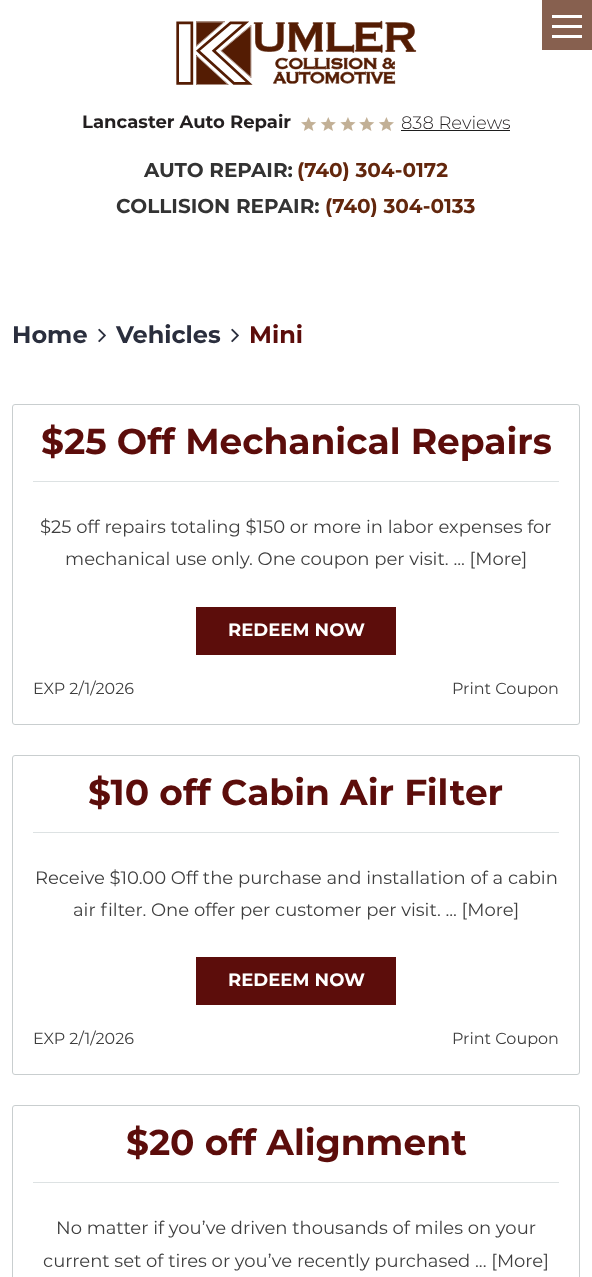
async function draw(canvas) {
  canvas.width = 592
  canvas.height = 1277
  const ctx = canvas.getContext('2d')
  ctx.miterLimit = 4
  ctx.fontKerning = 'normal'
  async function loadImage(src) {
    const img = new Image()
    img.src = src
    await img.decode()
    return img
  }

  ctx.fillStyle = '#fff'
  ctx.fillRect(0, 0, 592, 1277)
  ctx.drawImage(await loadImage('image0.png'), 176, 20, 241, 65)
  ctx.fillStyle = '#87604f'
  ctx.fillRect(542, 0, 50, 50)
  ctx.fillStyle = '#fff'
  ctx.fillRect(552, 25, 30, 3)
  ctx.fillRect(552, 15, 30, 3)
  ctx.fillRect(552, 35, 30, 3)
  ctx.font = 'bold 18px Montserrat'
  ctx.fillStyle = '#231f20'
  ctx.fillText('Lancaster Auto Repair', 82, 128)
  ctx.drawImage(await loadImage('image1.png'), 301, 117, 93, 14)
  ctx.font = '300 18px Montserrat'
  ctx.fillText('838 Reviews', 401, 129)
  ctx.fillStyle = '#1e1e1e'
  ctx.fillRect(401, 130, 109, 1)
  ctx.font = 'bold 20px Montserrat'
  ctx.fillStyle = '#333'
  ctx.fillText('AUTO REPAIR:', 144, 177)
  ctx.fillStyle = '#63270d'
  ctx.fillText('(740) 304-0172', 297, 177)
  ctx.fillStyle = '#333'
  ctx.fillText('COLLISION REPAIR:', 116, 213)
  ctx.fillStyle = '#63270d'
  ctx.fillText('(740) 304-0133', 325, 213)
  ctx.font = 'bold 24px Montserrat'
  ctx.fillStyle = '#2a2e3d'
  ctx.fillText('Home', 12, 343)
  ctx.drawImage(await loadImage('image2.png'), 98, 328, 8, 15)
  ctx.fillText('Vehicles', 116, 343)
  ctx.drawImage(await loadImage('image2.png'), 231, 328, 8, 15)
  ctx.fillStyle = '#5c0d0b'
  ctx.fillText('Mini', 249, 343)
  ctx.beginPath()
  ctx.roundRect(12.5, 404.5, 567, 320, 2.5)
  ctx.strokeStyle = '#c9cecf'
  ctx.stroke()
  ctx.fillStyle = '#dde2e3'
  ctx.fillRect(33, 481, 526, 1)
  ctx.font = 'bold 36px Montserrat'
  ctx.fillStyle = '#5c0d0b'
  ctx.fillText('$25 Off Mechanical Repairs', 41, 454)
  ctx.font = '18px Montserrat'
  ctx.fillStyle = '#3e3e3e'
  ctx.fillText('$25 off repairs totaling $150 or more in labor expenses for', 40, 533)
  ctx.fillText('mechanical use only. One coupon per visit. ... [More]', 65, 565)
  ctx.fillStyle = '#5c0d0b'
  ctx.fillRect(196, 607, 200, 48)
  ctx.font = 'bold 18px Montserrat'
  ctx.fillStyle = '#fff'
  ctx.fillText('REDEEM NOW', 228, 636)
  ctx.font = '16px Montserrat'
  ctx.fillStyle = '#3e3e3e'
  ctx.fillText('EXP 2/1/2026', 33, 694)
  ctx.fillText('Print Coupon', 452, 694)
  ctx.beginPath()
  ctx.roundRect(12.5, 755.5, 567, 319, 2.5)
  ctx.stroke()
  ctx.fillStyle = '#dde2e3'
  ctx.fillRect(33, 832, 526, 1)
  ctx.font = 'bold 36px Montserrat'
  ctx.fillStyle = '#5c0d0b'
  ctx.fillText('$10 off Cabin Air Filter', 88, 805)
  ctx.font = '18px Montserrat'
  ctx.fillStyle = '#3e3e3e'
  ctx.fillText('Receive $10.00 Off the purchase and installation of a cabin', 35, 884)
  ctx.fillText('air filter. One offer per customer per visit. ... [More]', 73, 916)
  ctx.fillStyle = '#5c0d0b'
  ctx.fillRect(196, 957, 200, 48)
  ctx.font = 'bold 18px Montserrat'
  ctx.fillStyle = '#fff'
  ctx.fillText('REDEEM NOW', 228, 986)
  ctx.font = '16px Montserrat'
  ctx.fillStyle = '#3e3e3e'
  ctx.fillText('EXP 2/1/2026', 33, 1044)
  ctx.fillText('Print Coupon', 452, 1044)
  ctx.beginPath()
  ctx.roundRect(12.5, 1105.5, 567, 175, 2.5)
  ctx.stroke()
  ctx.fillStyle = '#dde2e3'
  ctx.fillRect(33, 1182, 526, 1)
  ctx.font = 'bold 36px Montserrat'
  ctx.fillStyle = '#5c0d0b'
  ctx.fillText('$20 off Alignment', 126, 1155)
  ctx.font = '18px Montserrat'
  ctx.fillStyle = '#3e3e3e'
  ctx.fillText('No matter if you’ve driven thousands of miles on your', 56, 1234)
  ctx.fillText('current set of tires or you’ve recently purchased ... [More]', 43, 1267)
}

draw(document.querySelector('canvas'))
